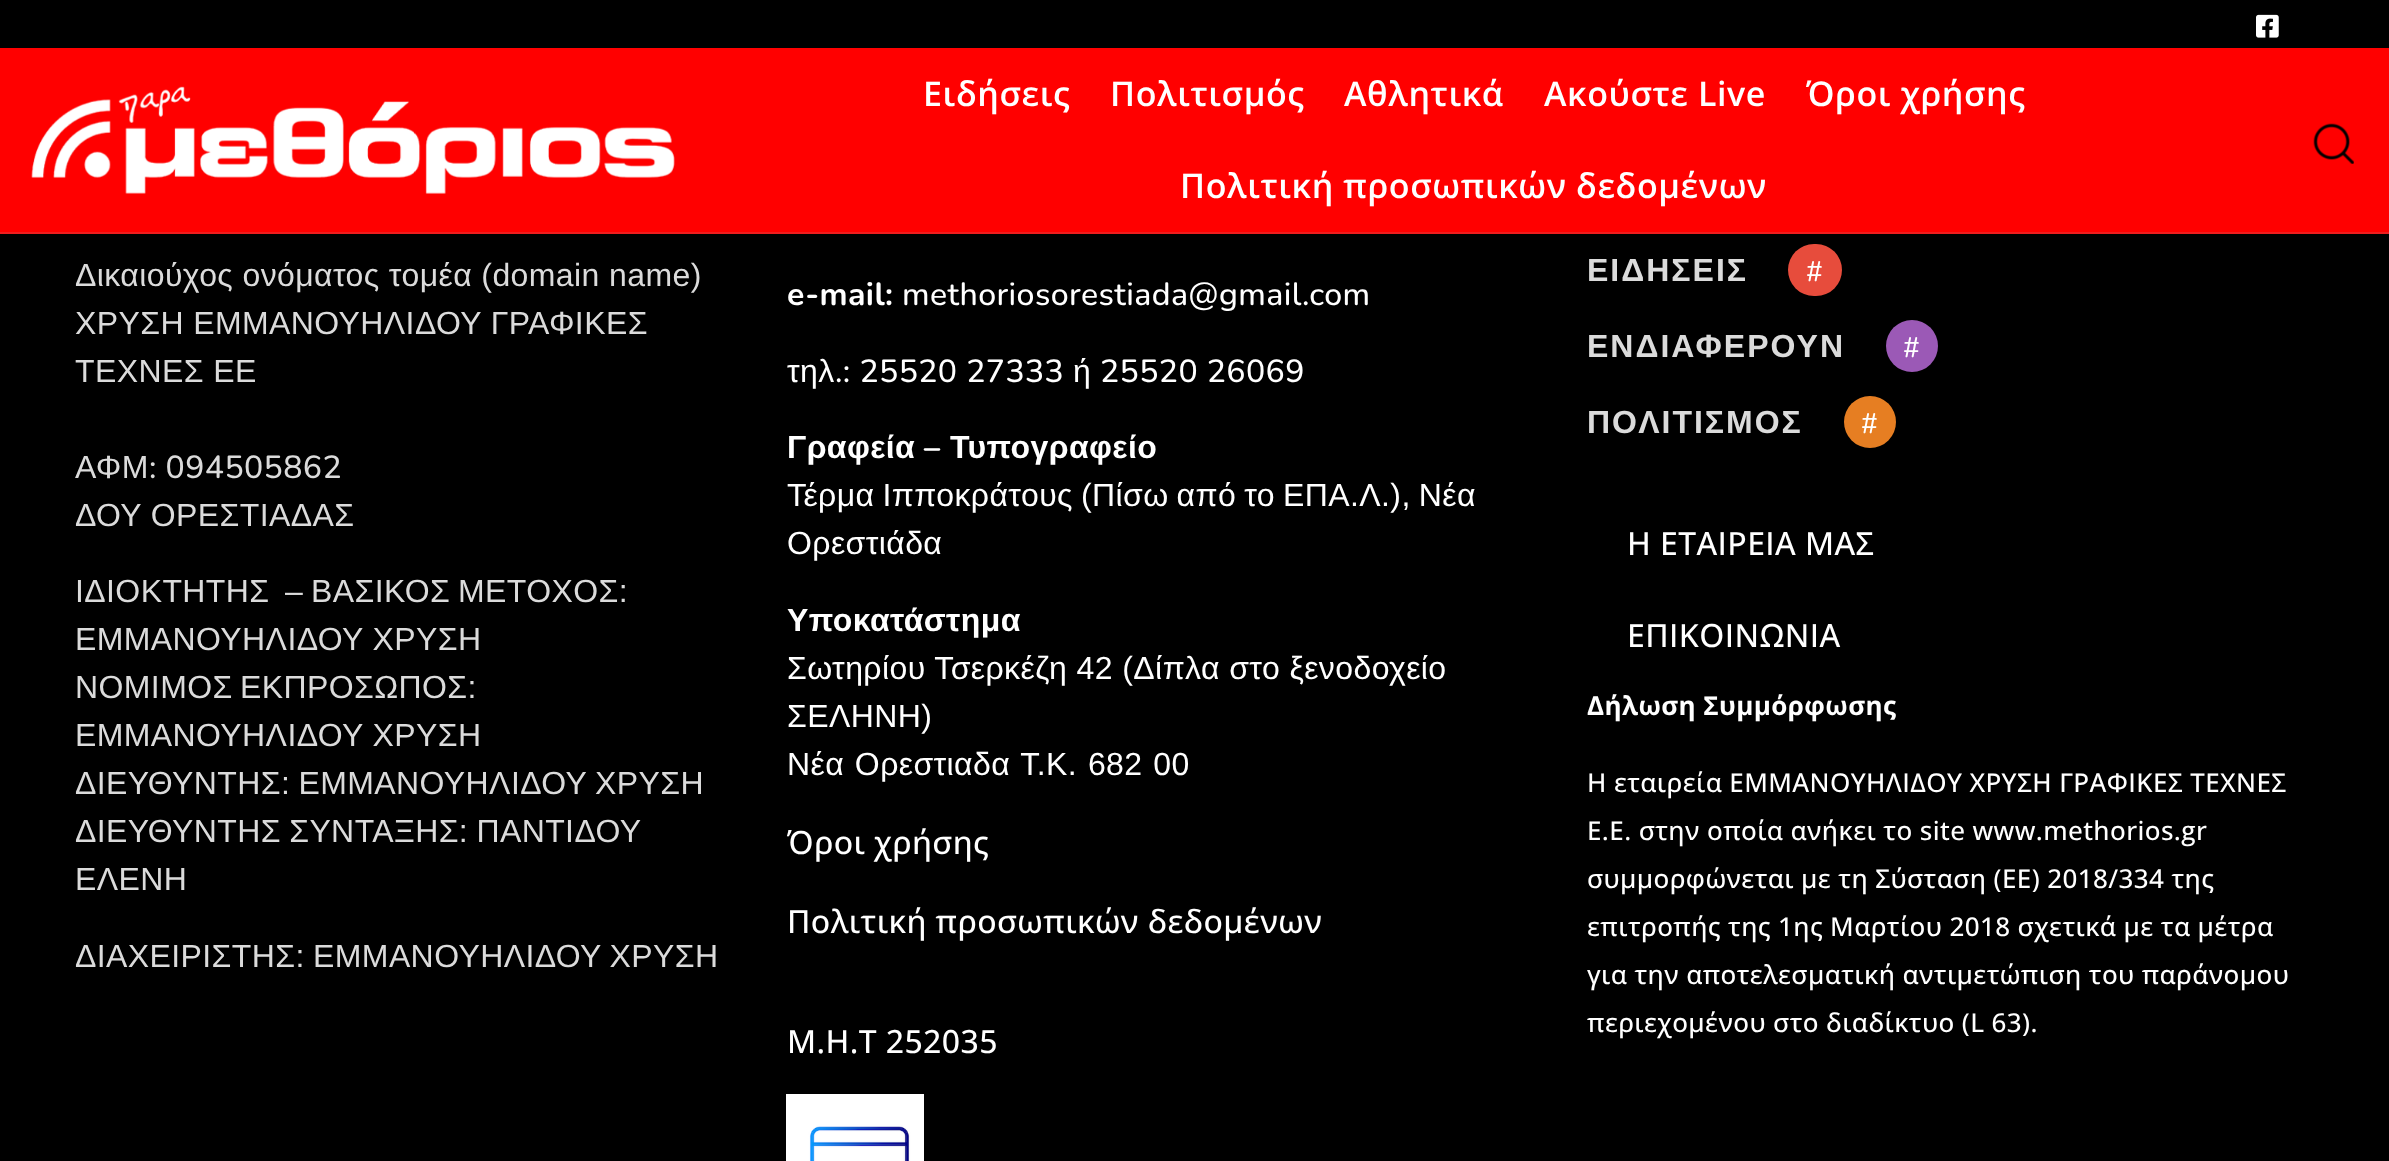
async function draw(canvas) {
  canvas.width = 2389
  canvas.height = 1161
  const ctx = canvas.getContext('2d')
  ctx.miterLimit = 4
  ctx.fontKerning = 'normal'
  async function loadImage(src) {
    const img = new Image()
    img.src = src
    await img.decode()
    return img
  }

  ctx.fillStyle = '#000'
  ctx.fillRect(0, 0, 2389, 1161)
  ctx.drawImage(await loadImage('image0.png'), 2256, 14, 23, 24)
  ctx.fillStyle = '#f00'
  ctx.fillRect(0, 48, 2389, 184)
  ctx.fillStyle = '#ef1d1e'
  ctx.fillRect(0, 232, 2389, 2)
  ctx.drawImage(await loadImage('image1.png'), 31, 86, 644, 108)
  ctx.letterSpacing = '0.6px'
  ctx.font = '600 34px Open Sans'
  ctx.fillStyle = '#fff'
  ctx.fillText('Ειδήσεις', 923, 106)
  ctx.fillText('Πολιτισμός', 1110, 106)
  ctx.fillText('Αθλητικά', 1344, 106)
  ctx.fillText('Ακούστε Live', 1544, 106)
  ctx.fillText('Όροι χρήσης', 1806, 106)
  ctx.fillText('Πολιτική προσωπικών δεδομένων', 1180, 198)
  ctx.drawImage(await loadImage('image2.png'), 2313, 123, 41, 41)
  ctx.letterSpacing = '0.4px'
  ctx.font = '32px Liberation Sans'
  ctx.fillStyle = '#dbdbdb'
  ctx.fillText('Δικαιούχος ονόματος τομέα (domain name)', 75, 286)
  ctx.fillText('ΧΡΥΣΗ ΕΜΜΑΝΟΥΗΛΙΔΟΥ ΓΡΑΦΙΚΕΣ', 75, 334)
  ctx.fillText('ΤΕΧΝΕΣ ΕΕ', 75, 382)
  ctx.fillText('ΑΦΜ', 75, 478)
  ctx.font = '500 32px Nunito'
  ctx.fillText(': 094505862', 149, 478)
  ctx.font = '32px Liberation Sans'
  ctx.fillText('ΔΟΥ ΟΡΕΣΤΙΑΔΑΣ', 75, 526)
  ctx.wordSpacing = '-1.5px'
  ctx.fillText('ΙΔΙΟΚΤΗΤΗΣ  – ΒΑΣΙΚΟΣ ΜΕΤΟΧΟΣ:', 75, 602)
  ctx.wordSpacing = '0px'
  ctx.fillText('ΕΜΜΑΝΟΥΗΛΙΔΟΥ ΧΡΥΣΗ', 75, 650)
  ctx.wordSpacing = '-2px'
  ctx.fillText('ΝΟΜΙΜΟΣ ΕΚΠΡΟΣΩΠΟΣ:', 75, 698)
  ctx.wordSpacing = '0px'
  ctx.fillText('ΕΜΜΑΝΟΥΗΛΙΔΟΥ ΧΡΥΣΗ', 75, 746)
  ctx.wordSpacing = '-1px'
  ctx.fillText('ΔΙΕΥΘΥΝΤΗΣ: ΕΜΜΑΝΟΥΗΛΙΔΟΥ ΧΡΥΣΗ', 75, 794)
  ctx.fillText('ΔΙΕΥΘΥΝΤΗΣ ΣΥΝΤΑΞΗΣ: ΠΑΝΤΙΔΟΥ', 75, 842)
  ctx.wordSpacing = '0px'
  ctx.fillText('ΕΛΕΝΗ', 75, 890)
  ctx.wordSpacing = '-1px'
  ctx.fillText('ΔΙΑΧΕΙΡΙΣΤΗΣ: ΕΜΜΑΝΟΥΗΛΙΔΟΥ ΧΡΥΣΗ', 75, 967)
  ctx.wordSpacing = '0px'
  ctx.font = 'bold 32px Nunito'
  ctx.fillStyle = '#fff'
  ctx.fillText('e-mail:', 787, 305)
  ctx.font = '500 32px Nunito'
  ctx.fillText('methoriosorestiada@gmail.com', 902, 305)
  ctx.font = '32px Liberation Sans'
  ctx.fillText('τηλ', 787, 382)
  ctx.font = '500 32px Nunito'
  ctx.fillText('.: 25520 27333', 835, 382)
  ctx.font = '32px Liberation Sans'
  ctx.fillText('ή', 1073, 382)
  ctx.font = '500 32px Nunito'
  ctx.fillText('25520 26069', 1100, 382)
  ctx.font = 'bold 32px Liberation Sans'
  ctx.fillText('Γραφεία', 787, 458)
  ctx.font = 'bold 32px Nunito'
  ctx.fillText('–', 924, 458)
  ctx.font = 'bold 32px Liberation Sans'
  ctx.fillText('Τυπογραφείο', 950, 458)
  ctx.wordSpacing = '-1.25px'
  ctx.font = '32px Liberation Sans'
  ctx.fillText('Τέρμα Ιπποκράτους (Πίσω από το ΕΠΑ.Λ.), Νέα', 787, 506)
  ctx.wordSpacing = '0px'
  ctx.fillText('Ορεστιάδα', 787, 554)
  ctx.font = 'bold 32px Liberation Sans'
  ctx.fillText('Υποκατάστημα', 787, 631)
  ctx.font = '32px Liberation Sans'
  ctx.fillText('Σωτηρίου Τσερκέζη 42 (Δίπλα στο ξενοδοχείο', 787, 679)
  ctx.fillText('ΣΕΛΗΝΗ)', 787, 727)
  ctx.wordSpacing = '1.5px'
  ctx.fillText('Νέα Ορεστιαδα Τ.Κ. 682 00', 787, 775)
  ctx.wordSpacing = '0px'
  ctx.font = '500 32px Open Sans'
  ctx.fillText('Όροι χρήσης', 787, 854)
  ctx.fillText('Πολιτική προσωπικών δεδομένων', 787, 933)
  ctx.fillText('Μ.Η.Τ 252035', 787, 1053)
  ctx.drawImage(await loadImage('image3.png'), 786, 1094, 138, 67)
  ctx.letterSpacing = '2px'
  ctx.font = 'bold 32px Liberation Sans'
  ctx.fillStyle = '#dbdbdb'
  ctx.fillText('ΕΙΔΗΣΕΙΣ', 1587, 281)
  ctx.fillStyle = '#e74c3c'
  ctx.beginPath()
  ctx.roundRect(1788, 244, 54, 52, 26)
  ctx.fill()
  ctx.letterSpacing = '0.6px'
  ctx.font = '500 28px Nunito'
  ctx.fillStyle = '#fff'
  ctx.fillText('#', 1806, 281)
  ctx.letterSpacing = '2px'
  ctx.font = 'bold 32px Liberation Sans'
  ctx.fillStyle = '#dbdbdb'
  ctx.fillText('ΕΝΔΙΑΦΕΡΟΥΝ', 1587, 357)
  ctx.fillStyle = '#9b59b6'
  ctx.beginPath()
  ctx.arc(1912, 346, 26, 0, 2 * Math.PI)
  ctx.fill()
  ctx.letterSpacing = '0.6px'
  ctx.font = '500 28px Nunito'
  ctx.fillStyle = '#fff'
  ctx.fillText('#', 1903, 357)
  ctx.letterSpacing = '2px'
  ctx.font = 'bold 32px Liberation Sans'
  ctx.fillStyle = '#dbdbdb'
  ctx.fillText('ΠΟΛΙΤΙΣΜΟΣ', 1587, 433)
  ctx.fillStyle = '#e67e22'
  ctx.beginPath()
  ctx.arc(1870, 422, 26, 0, 2 * Math.PI)
  ctx.fill()
  ctx.letterSpacing = '0.6px'
  ctx.font = '500 28px Nunito'
  ctx.fillStyle = '#fff'
  ctx.fillText('#', 1861, 433)
  ctx.letterSpacing = '0.4px'
  ctx.font = '500 32px Open Sans'
  ctx.fillText('Η ΕΤΑΙΡΕΙΑ ΜΑΣ', 1627, 555)
  ctx.fillText('ΕΠΙΚΟΙΝΩΝΙΑ', 1627, 647)
  ctx.font = 'bold 26px Open Sans'
  ctx.fillText('Δήλωση Συμμόρφωσης', 1587, 715)
  ctx.font = '500 26px Open Sans'
  ctx.fillText('Η εταιρεία ΕΜΜΑΝΟΥΗΛΙΔΟΥ ΧΡΥΣΗ ΓΡΑΦΙΚΕΣ ΤΕΧΝΕΣ', 1587, 792)
  ctx.fillText('Ε.Ε. στην οποία ανήκει το site www.methorios.gr', 1587, 840)
  ctx.fillText('συμμορφώνεται με τη Σύσταση (ΕΕ) 2018/334 της', 1587, 888)
  ctx.fillText('επιτροπής της 1ης Μαρτίου 2018 σχετικά με τα μέτρα', 1587, 936)
  ctx.fillText('για την αποτελεσματική αντιμετώπιση του παράνομου', 1587, 984)
  ctx.fillText('περιεχομένου στο διαδίκτυο (L 63).', 1587, 1032)
}

draw(document.querySelector('canvas'))
